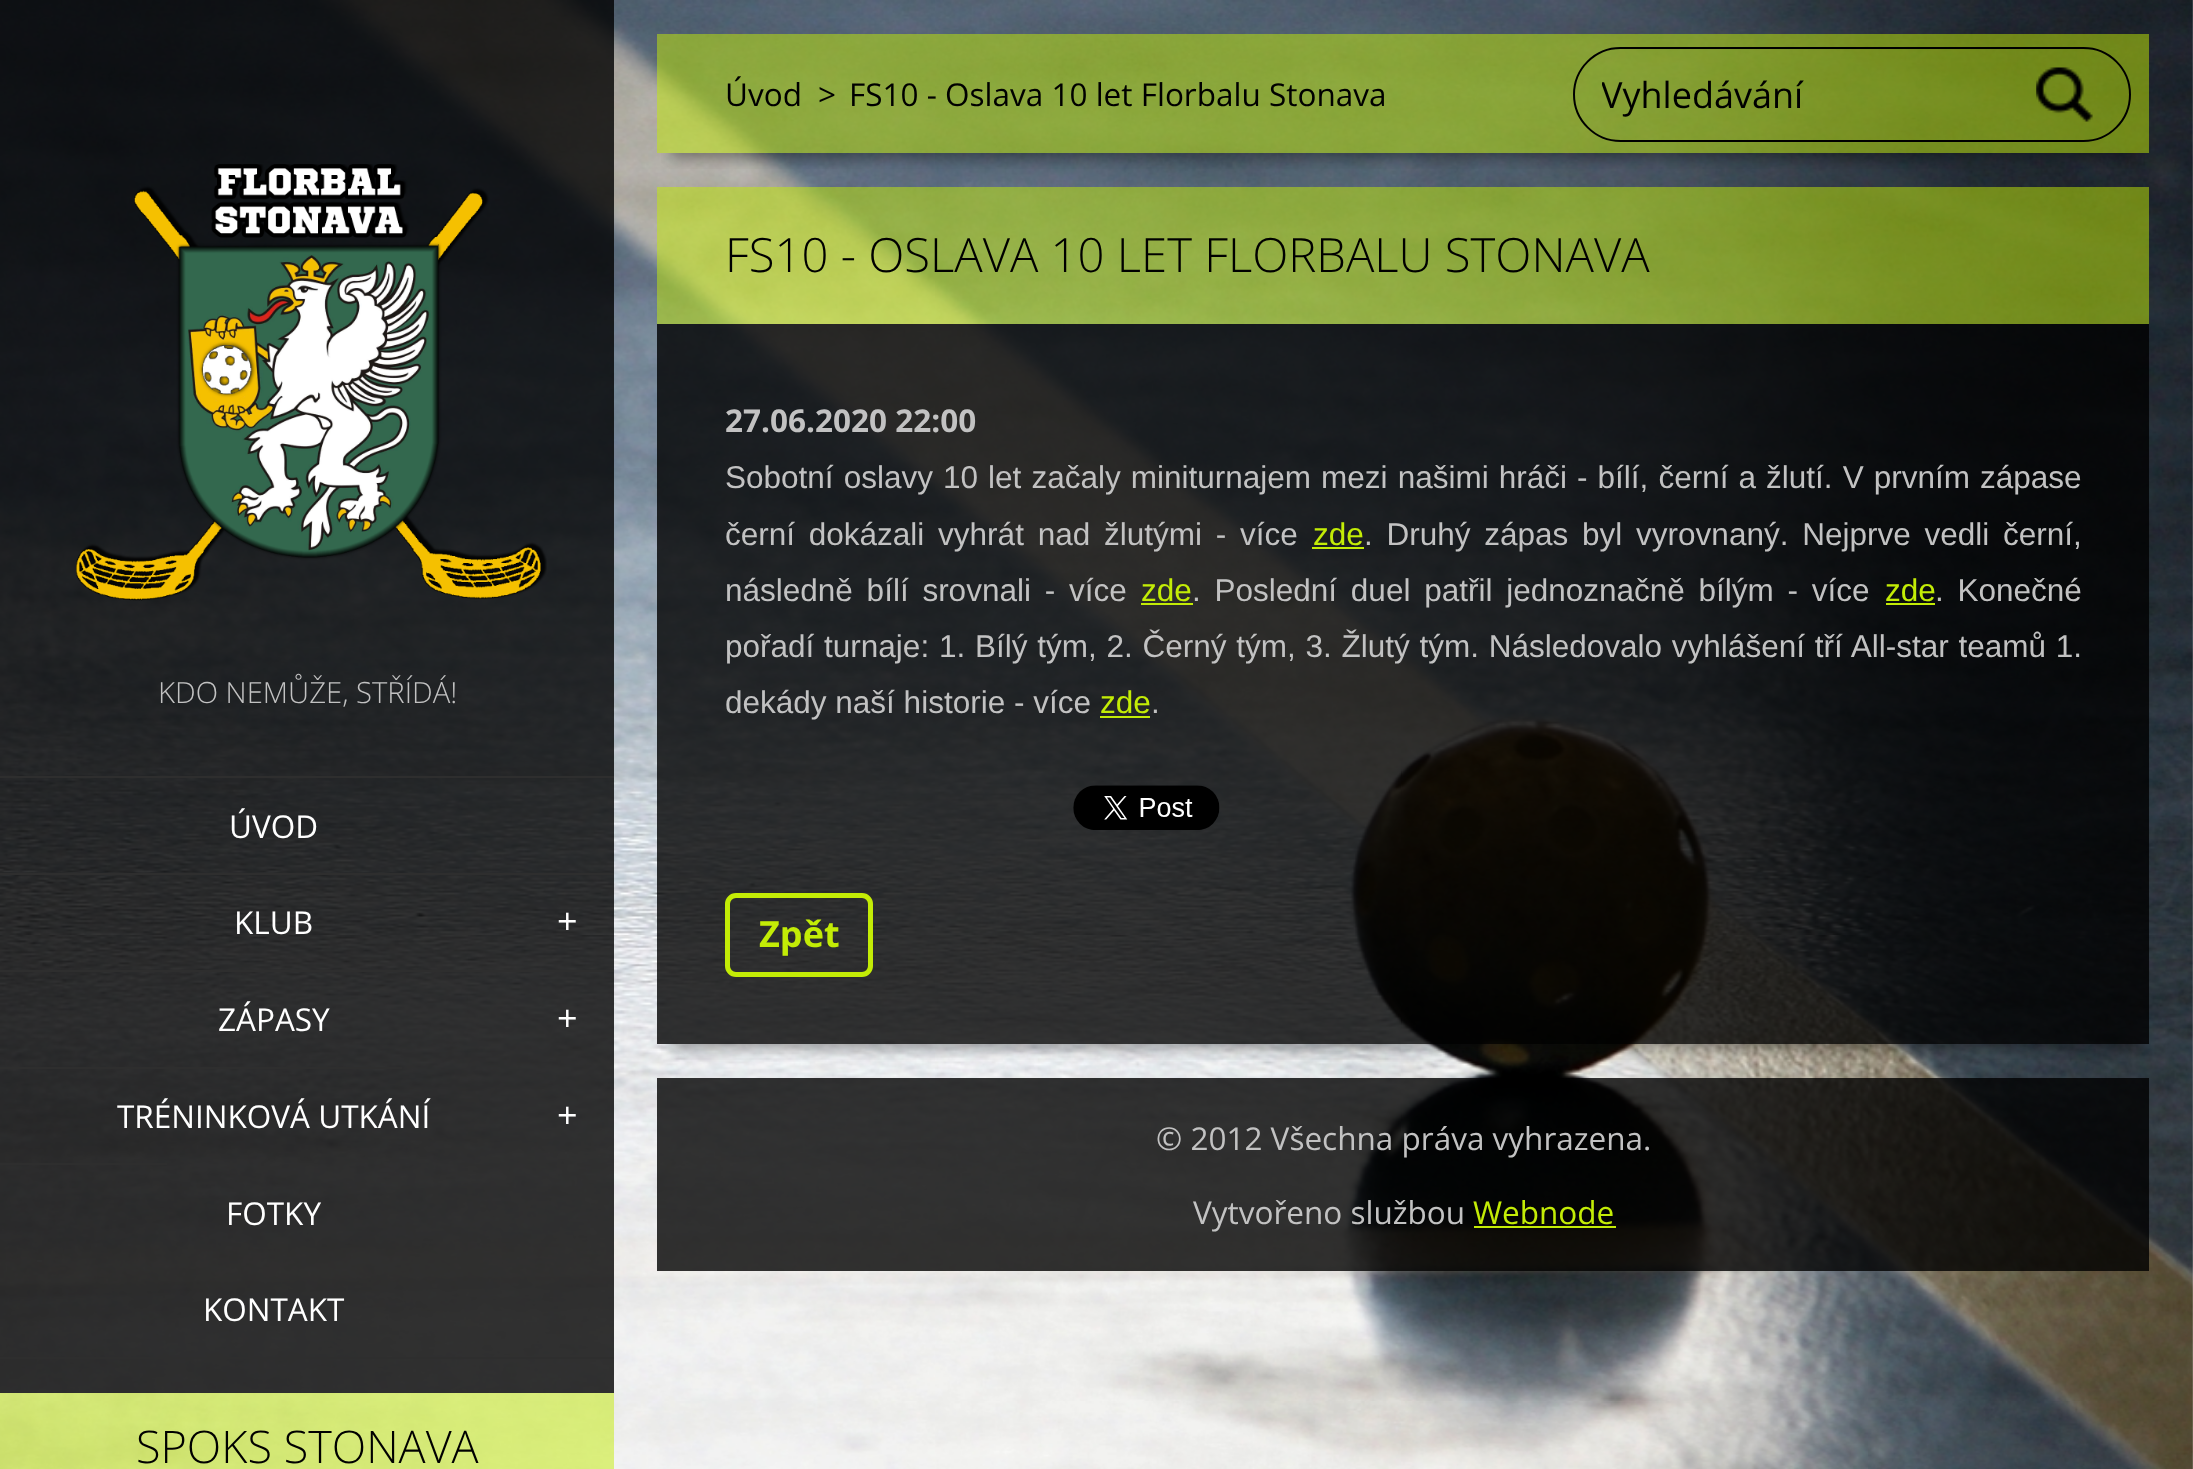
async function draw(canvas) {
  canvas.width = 2193
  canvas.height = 1469
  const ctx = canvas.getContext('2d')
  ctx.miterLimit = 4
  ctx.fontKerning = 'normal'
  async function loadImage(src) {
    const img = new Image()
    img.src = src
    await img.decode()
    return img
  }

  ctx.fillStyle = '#fff'
  ctx.fillRect(0, 0, 2193, 1469)
  ctx.drawImage(await loadImage('image0.png'), 0, 0, 2193, 1469)
  ctx.save()
  ctx.beginPath()
  ctx.rect(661, 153, 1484, 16)
  ctx.clip()
  ctx.fillStyle = '#00000059'
  ctx.filter = 'blur(7px)'
  ctx.beginPath()
  ctx.rect(671, 65, 1464, 93)
  ctx.fill()
  ctx.filter = 'none'
  ctx.restore()
  ctx.fillStyle = '#c3ec0680'
  ctx.fillRect(657, 34, 1492, 119)
  ctx.font = '31.5px Open Sans'
  ctx.fillStyle = '#000'
  ctx.fillText('Úvod', 725, 106)
  ctx.fillText('>', 818, 106)
  ctx.fillText('FS10 - Oslava 10 let Florbalu Stonava', 849, 106)
  ctx.save()
  ctx.beginPath()
  ctx.rect(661, 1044, 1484, 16)
  ctx.clip()
  ctx.fillStyle = '#00000059'
  ctx.filter = 'blur(7px)'
  ctx.beginPath()
  ctx.rect(671, 218, 1464, 831)
  ctx.fill()
  ctx.filter = 'none'
  ctx.restore()
  ctx.fillStyle = '#c3ec0680'
  ctx.fillRect(657, 187, 1492, 137)
  ctx.font = '300 47.25px Open Sans'
  ctx.fillStyle = '#000'
  ctx.fillText('FS10 - OSLAVA 10 LET FLORBALU STONAVA', 725, 272)
  ctx.fillStyle = '#000000cc'
  ctx.fillRect(657, 324, 1492, 461)
  ctx.font = 'bold 31.5px Open Sans'
  ctx.fillStyle = '#c2c2c2'
  ctx.fillText('27.06.2020 22:00', 725, 432)
  ctx.wordSpacing = '1.3px'
  ctx.font = '31.5px Liberation Sans'
  ctx.fillText('Sobotní oslavy 10 let začaly miniturnajem mezi našimi hráči - bílí, černí a žlutí. V prvním zápase', 725, 488)
  ctx.wordSpacing = '5px'
  ctx.fillText('černí dokázali vyhrát nad žlutými - více', 725, 545)
  ctx.wordSpacing = '0px'
  ctx.fillStyle = '#c3ec06'
  ctx.fillText('zde', 1313, 545)
  ctx.wordSpacing = '5px'
  ctx.fillStyle = '#c2c2c2'
  ctx.fillText('. Druhý zápas byl vyrovnaný. Nejprve vedli černí,', 1364, 545)
  ctx.fillStyle = '#c3ec06'
  ctx.fillRect(1312, 547, 52, 2)
  ctx.fillStyle = '#c2c2c2'
  ctx.fillText('následně bílí srovnali - více', 725, 601)
  ctx.wordSpacing = '0px'
  ctx.fillStyle = '#c3ec06'
  ctx.fillText('zde', 1141, 601)
  ctx.wordSpacing = '5px'
  ctx.fillStyle = '#c2c2c2'
  ctx.fillText('. Poslední duel patřil jednoznačně bílým - více', 1192, 601)
  ctx.fillStyle = '#c3ec06'
  ctx.fillRect(1141, 603, 52, 2)
  ctx.wordSpacing = '0px'
  ctx.fillText('zde', 1885, 601)
  ctx.fillRect(1886, 603, 49, 2)
  ctx.wordSpacing = '5px'
  ctx.fillStyle = '#c2c2c2'
  ctx.fillText('. Konečné', 1935, 601)
  ctx.wordSpacing = '1px'
  ctx.fillText('pořadí turnaje: 1. Bílý tým, 2. Černý tým, 3. Žlutý tým. Následovalo vyhlášení tří All-star teamů 1.', 725, 657)
  ctx.wordSpacing = '0px'
  ctx.fillText('dekády naší historie - více', 725, 713)
  ctx.fillStyle = '#c3ec06'
  ctx.fillText('zde', 1100, 713)
  ctx.fillStyle = '#c2c2c2'
  ctx.fillText('.', 1151, 713)
  ctx.fillStyle = '#c3ec06'
  ctx.fillRect(1100, 716, 50, 2)
  ctx.fillStyle = '#000000cc'
  ctx.fillRect(657, 785, 1492, 259)
  ctx.drawImage(await loadImage('image1.png'), 1073, 785, 147, 45)
  ctx.beginPath()
  ctx.roundRect(727.5, 895.5, 143, 79, 8.5)
  ctx.strokeStyle = '#c3ec06'
  ctx.lineWidth = 5
  ctx.stroke()
  ctx.font = 'bold 36px Open Sans'
  ctx.fillStyle = '#c3ec06'
  ctx.fillText('Zpět', 759, 947)
  ctx.fillStyle = '#000000cc'
  ctx.fillRect(657, 1078, 1492, 193)
  ctx.font = '31.5px Open Sans'
  ctx.fillStyle = '#c2c2c2'
  ctx.fillText('© 2012 Všechna práva vyhrazena.', 1156, 1150)
  ctx.fillText('Vytvořeno službou', 1193, 1224)
  ctx.fillStyle = '#c3ec06'
  ctx.fillText('Webnode', 1473, 1224)
  ctx.fillRect(1474, 1226, 142, 2)
  ctx.beginPath()
  ctx.roundRect(1574, 48, 556, 93, 46.5)
  ctx.strokeStyle = '#000'
  ctx.lineWidth = 2
  ctx.stroke()
  ctx.save()
  ctx.beginPath()
  ctx.rect(1602, 70, 419, 49)
  ctx.clip()
  ctx.font = '36px Open Sans'
  ctx.fillStyle = '#000'
  ctx.fillText('Vyhledávání', 1601, 108)
  ctx.restore()
  ctx.drawImage(await loadImage('image2.png'), 2036, 67, 57, 55)
  ctx.fillStyle = '#000000cc'
  ctx.fillRect(0, 0, 614, 664)
  ctx.drawImage(await loadImage('image3.png'), 76, 164, 471, 437)
  ctx.fillRect(0, 664, 614, 112)
  ctx.font = '300 29.25px Open Sans'
  ctx.fillStyle = '#c2c2c2'
  ctx.fillText('KDO NEMŮŽE, STŘÍDÁ!', 158, 703)
  ctx.fillStyle = '#000000cc'
  ctx.fillRect(0, 778, 614, 579)
  ctx.fillStyle = '#2e2e2e'
  ctx.fillRect(0, 776, 614, 2)
  ctx.fillRect(0, 873, 614, 2)
  ctx.font = '31.5px Open Sans'
  ctx.fillStyle = '#fff'
  ctx.fillText('ÚVOD', 229, 838)
  ctx.fillStyle = '#2e2e2e'
  ctx.fillRect(0, 970, 614, 2)
  ctx.fillStyle = '#fff'
  ctx.fillText('KLUB', 234, 934)
  ctx.font = '36px Open Sans'
  ctx.fillText('+', 557, 934)
  ctx.fillStyle = '#2e2e2e'
  ctx.fillRect(0, 1067, 402, 2)
  ctx.font = '31.5px Open Sans'
  ctx.fillStyle = '#fff'
  ctx.fillText('ZÁPASY', 218, 1031)
  ctx.font = '36px Open Sans'
  ctx.fillText('+', 557, 1031)
  ctx.fillStyle = '#2e2e2e'
  ctx.fillRect(0, 1163, 167, 2)
  ctx.font = '31.5px Open Sans'
  ctx.fillStyle = '#fff'
  ctx.fillText('TRÉNINKOVÁ UTKÁNÍ', 117, 1128)
  ctx.font = '36px Open Sans'
  ctx.fillText('+', 557, 1128)
  ctx.fillStyle = '#2e2e2e'
  ctx.fillRect(37, 1260, 5, 2)
  ctx.font = '31.5px Open Sans'
  ctx.fillStyle = '#fff'
  ctx.fillText('FOTKY', 226, 1225)
  ctx.fillStyle = '#2e2e2e'
  ctx.fillRect(0, 1357, 614, 2)
  ctx.fillStyle = '#fff'
  ctx.fillText('KONTAKT', 203, 1321)
  ctx.fillStyle = '#000000cc'
  ctx.fillRect(0, 1359, 614, 34)
  ctx.fillStyle = '#c3ec0680'
  ctx.fillRect(0, 1393, 614, 76)
  ctx.font = '300 45px Open Sans'
  ctx.fillStyle = '#000'
  ctx.fillText('SPOKS STONAVA', 136, 1463)
}

draw(document.querySelector('canvas'))
